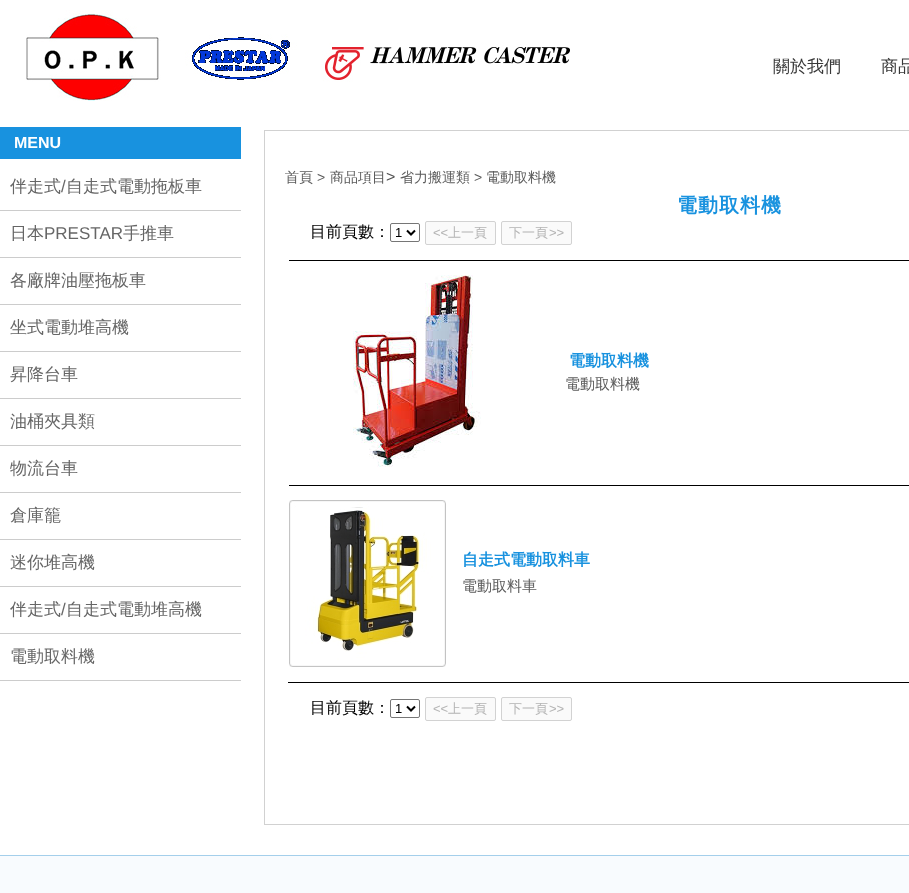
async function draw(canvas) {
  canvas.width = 909
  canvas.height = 893
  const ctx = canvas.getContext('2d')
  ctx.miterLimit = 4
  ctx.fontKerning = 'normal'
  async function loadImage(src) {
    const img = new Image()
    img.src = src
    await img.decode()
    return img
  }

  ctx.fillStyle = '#fff'
  ctx.fillRect(0, 0, 909, 893)
  ctx.drawImage(await loadImage('image0.png'), 26, 10, 544, 91)
  ctx.font = '500 17px WenQuanYi Zen Hei'
  ctx.fillStyle = '#383838'
  ctx.fillText('關於我們', 773, 72)
  ctx.fillText('商品', 881, 72)
  ctx.fillStyle = '#1892df'
  ctx.fillRect(0, 127, 241, 32)
  ctx.font = 'bold 16px Liberation Sans'
  ctx.fillStyle = '#fff'
  ctx.fillText('MENU', 14, 148)
  ctx.fillStyle = '#ccc'
  ctx.fillRect(0, 210, 241, 1)
  ctx.font = '500 17px WenQuanYi Zen Hei'
  ctx.fillStyle = '#666'
  ctx.fillText('伴走式', 10, 192)
  ctx.font = '17px Liberation Sans'
  ctx.fillText('/', 61, 192)
  ctx.font = '500 17px WenQuanYi Zen Hei'
  ctx.fillText('自走式電動拖板車', 66, 192)
  ctx.fillStyle = '#ccc'
  ctx.fillRect(0, 257, 241, 1)
  ctx.fillStyle = '#666'
  ctx.fillText('日本', 10, 239)
  ctx.font = '17px Liberation Sans'
  ctx.fillText('PRESTAR', 44, 239)
  ctx.font = '500 17px WenQuanYi Zen Hei'
  ctx.fillText('手推車', 123, 239)
  ctx.fillStyle = '#ccc'
  ctx.fillRect(0, 304, 241, 1)
  ctx.fillStyle = '#666'
  ctx.fillText('各廠牌油壓拖板車', 10, 286)
  ctx.fillStyle = '#ccc'
  ctx.fillRect(0, 351, 241, 1)
  ctx.fillStyle = '#666'
  ctx.fillText('坐式電動堆高機', 10, 333)
  ctx.fillStyle = '#ccc'
  ctx.fillRect(0, 398, 241, 1)
  ctx.fillStyle = '#666'
  ctx.fillText('昇降台車', 10, 380)
  ctx.fillStyle = '#ccc'
  ctx.fillRect(0, 445, 241, 1)
  ctx.fillStyle = '#666'
  ctx.fillText('油桶夾具類', 10, 427)
  ctx.fillStyle = '#ccc'
  ctx.fillRect(0, 492, 241, 1)
  ctx.fillStyle = '#666'
  ctx.fillText('物流台車', 10, 474)
  ctx.fillStyle = '#ccc'
  ctx.fillRect(0, 539, 241, 1)
  ctx.fillStyle = '#666'
  ctx.fillText('倉庫籠', 10, 521)
  ctx.fillStyle = '#ccc'
  ctx.fillRect(0, 586, 241, 1)
  ctx.fillStyle = '#666'
  ctx.fillText('迷你堆高機', 10, 568)
  ctx.fillStyle = '#ccc'
  ctx.fillRect(0, 633, 241, 1)
  ctx.fillStyle = '#666'
  ctx.fillText('伴走式', 10, 615)
  ctx.font = '17px Liberation Sans'
  ctx.fillText('/', 61, 615)
  ctx.font = '500 17px WenQuanYi Zen Hei'
  ctx.fillText('自走式電動堆高機', 66, 615)
  ctx.fillStyle = '#ccc'
  ctx.fillRect(0, 680, 241, 1)
  ctx.fillStyle = '#666'
  ctx.fillText('電動取料機', 10, 662)
  ctx.strokeStyle = '#d1d1d1'
  ctx.strokeRect(264.5, 130.5, 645, 694)
  ctx.font = '500 14px WenQuanYi Zen Hei'
  ctx.fillStyle = '#5b5b5b'
  ctx.fillText('首頁', 285, 182)
  ctx.font = '14px Liberation Sans'
  ctx.fillText('>', 317, 182)
  ctx.font = '500 14px WenQuanYi Zen Hei'
  ctx.fillText('商品項目', 330, 182)
  ctx.font = '16px Liberation Sans'
  ctx.fillStyle = '#515151'
  ctx.fillText('>', 386, 182)
  ctx.font = '500 14px WenQuanYi Zen Hei'
  ctx.fillStyle = '#5b5b5b'
  ctx.fillText('省力搬運類', 400, 182)
  ctx.font = '14px Liberation Sans'
  ctx.fillText('>', 474, 182)
  ctx.font = '500 14px WenQuanYi Zen Hei'
  ctx.fillText('電動取料機', 486, 182)
  ctx.letterSpacing = '1px'
  ctx.font = 'bold 20px WenQuanYi Zen Hei'
  ctx.fillStyle = '#1892df'
  ctx.fillText('電動取料機', 677, 212)
  ctx.letterSpacing = '0px'
  ctx.font = '500 16px WenQuanYi Zen Hei'
  ctx.fillStyle = '#000'
  ctx.fillText('目前頁數：', 310, 237)
  ctx.beginPath()
  ctx.roundRect(390.5, 223.5, 29, 18, 1.5)
  ctx.strokeStyle = '#767676'
  ctx.stroke()
  ctx.beginPath()
  ctx.moveTo(407, 230.5)
  ctx.lineTo(411, 234.5)
  ctx.lineTo(415, 230.5)
  ctx.strokeStyle = '#000'
  ctx.lineWidth = 2
  ctx.stroke()
  ctx.font = '13px Liberation Sans'
  ctx.fillText('1', 395, 237)
  ctx.fillStyle = '#fafafa'
  ctx.beginPath()
  ctx.roundRect(425.5, 221.5, 70, 23, 1.5)
  ctx.fill()
  ctx.strokeStyle = '#d2d2d2'
  ctx.lineWidth = 1
  ctx.stroke()
  ctx.fillStyle = '#b4b4b4'
  ctx.fillText('<<', 433, 237)
  ctx.font = '500 13px WenQuanYi Zen Hei'
  ctx.fillText('上一頁', 448, 237)
  ctx.fillStyle = '#fafafa'
  ctx.beginPath()
  ctx.roundRect(501.5, 221.5, 70, 23, 1.5)
  ctx.fill()
  ctx.stroke()
  ctx.fillStyle = '#b4b4b4'
  ctx.fillText('下一頁', 509, 237)
  ctx.font = '13px Liberation Sans'
  ctx.fillText('>>', 549, 237)
  ctx.fillStyle = '#000'
  ctx.fillRect(289, 260, 620, 1)
  ctx.drawImage(await loadImage('image1.png'), 353, 275, 128, 192)
  ctx.font = 'bold 16px WenQuanYi Zen Hei'
  ctx.fillStyle = '#1892df'
  ctx.fillText('電動取料機', 569, 366)
  ctx.font = '500 15px WenQuanYi Zen Hei'
  ctx.fillStyle = '#5b5b5b'
  ctx.fillText('電動取料機', 565, 389)
  ctx.fillStyle = '#000'
  ctx.fillRect(289, 485, 620, 1)
  ctx.drawImage(await loadImage('image2.png'), 289, 500, 157, 167)
  ctx.font = 'bold 16px WenQuanYi Zen Hei'
  ctx.fillStyle = '#1892df'
  ctx.fillText('自走式電動取料車', 462, 565)
  ctx.font = '500 15px WenQuanYi Zen Hei'
  ctx.fillStyle = '#5b5b5b'
  ctx.fillText('電動取料車', 462, 591)
  ctx.fillStyle = '#000'
  ctx.fillRect(288, 682, 621, 1)
  ctx.font = '500 16px WenQuanYi Zen Hei'
  ctx.fillText('目前頁數：', 310, 713)
  ctx.beginPath()
  ctx.roundRect(390.5, 699.5, 29, 18, 1.5)
  ctx.strokeStyle = '#767676'
  ctx.stroke()
  ctx.beginPath()
  ctx.moveTo(407, 706.5)
  ctx.lineTo(411, 710.5)
  ctx.lineTo(415, 706.5)
  ctx.strokeStyle = '#000'
  ctx.lineWidth = 2
  ctx.stroke()
  ctx.font = '13px Liberation Sans'
  ctx.fillText('1', 395, 713)
  ctx.fillStyle = '#fafafa'
  ctx.beginPath()
  ctx.roundRect(425.5, 697.5, 70, 23, 1.5)
  ctx.fill()
  ctx.strokeStyle = '#d2d2d2'
  ctx.lineWidth = 1
  ctx.stroke()
  ctx.fillStyle = '#b4b4b4'
  ctx.fillText('<<', 433, 713)
  ctx.font = '500 13px WenQuanYi Zen Hei'
  ctx.fillText('上一頁', 448, 713)
  ctx.fillStyle = '#fafafa'
  ctx.beginPath()
  ctx.roundRect(501.5, 697.5, 70, 23, 1.5)
  ctx.fill()
  ctx.stroke()
  ctx.fillStyle = '#b4b4b4'
  ctx.fillText('下一頁', 509, 713)
  ctx.font = '13px Liberation Sans'
  ctx.fillText('>>', 549, 713)
  ctx.fillStyle = '#f8fbfe'
  ctx.fillRect(0, 856, 909, 37)
  ctx.fillStyle = '#a4cfeb'
  ctx.fillRect(0, 855, 909, 1)
}

draw(document.querySelector('canvas'))
